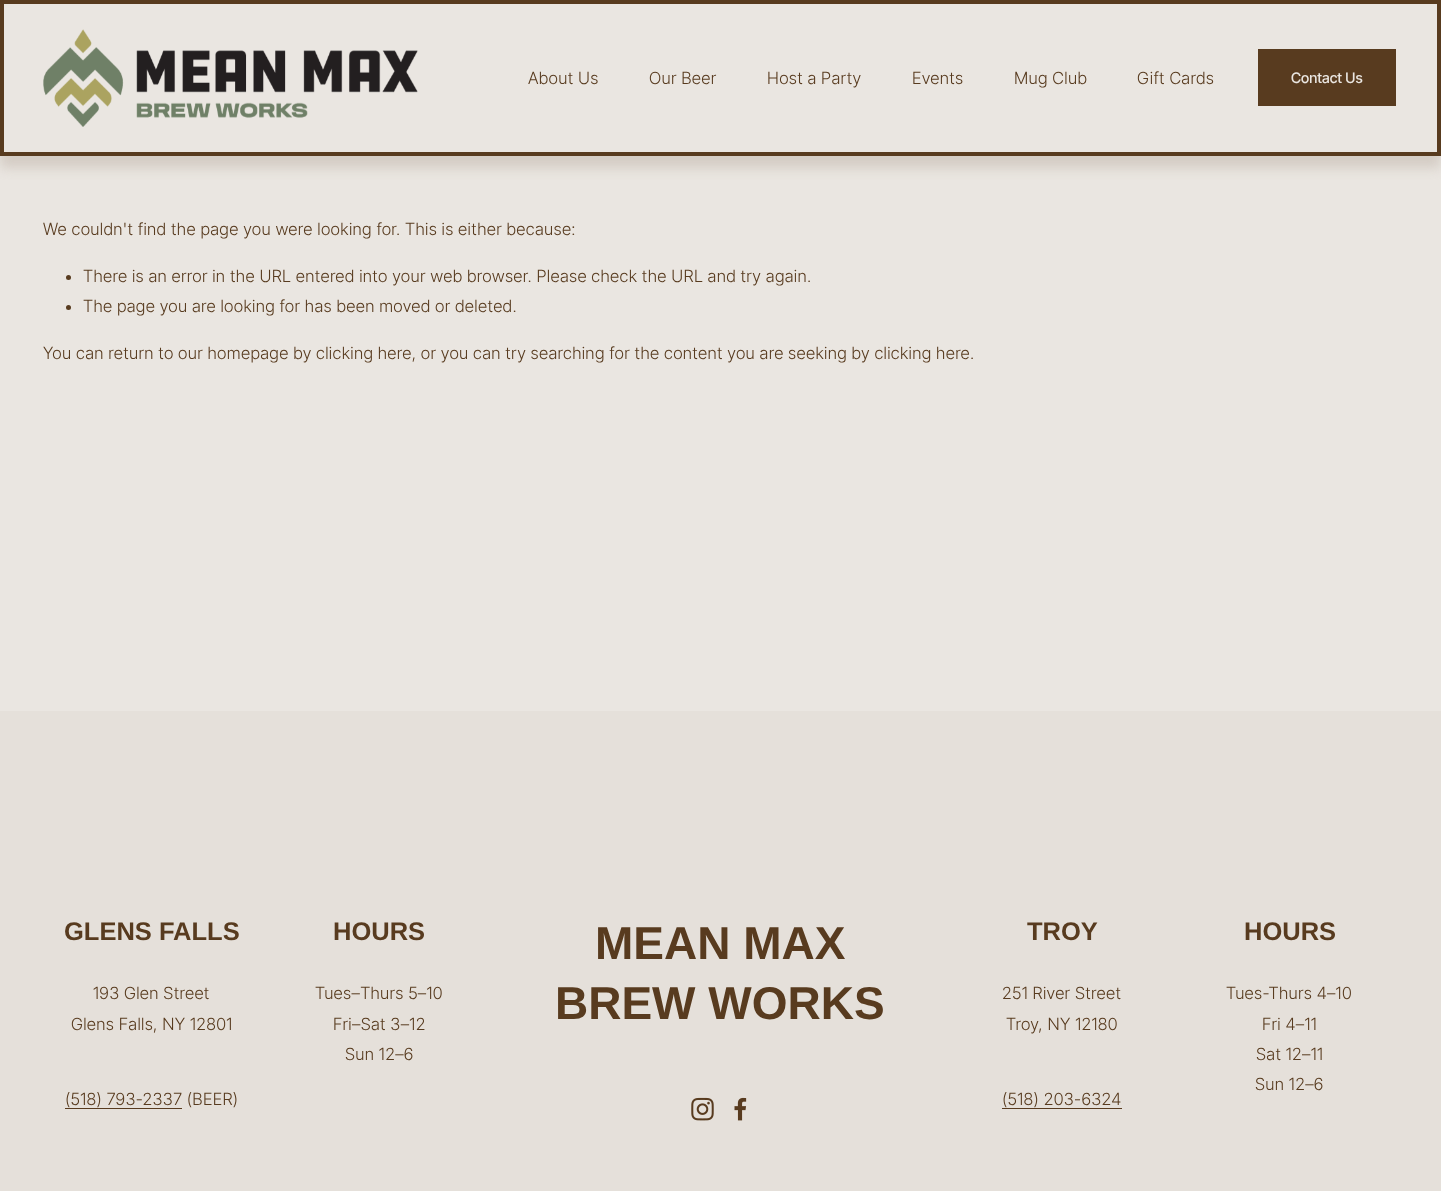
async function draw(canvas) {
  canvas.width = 1441
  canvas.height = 1191
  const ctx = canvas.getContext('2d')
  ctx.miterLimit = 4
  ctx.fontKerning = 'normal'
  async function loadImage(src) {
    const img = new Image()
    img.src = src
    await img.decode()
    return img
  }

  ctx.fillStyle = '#eae6e1'
  ctx.fillRect(0, 0, 1441, 1191)
  ctx.save()
  ctx.beginPath()
  ctx.rect(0, 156, 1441, 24)
  ctx.clip()
  ctx.fillStyle = '#d4ccc4'
  ctx.filter = 'blur(6px)'
  ctx.beginPath()
  ctx.rect(0, 12, 1441, 156)
  ctx.fill()
  ctx.filter = 'none'
  ctx.restore()
  ctx.strokeStyle = '#583b1f'
  ctx.lineWidth = 4
  ctx.strokeRect(2, 2, 1437, 152)
  ctx.drawImage(await loadImage('image0.png'), 43, 29, 375, 98)
  ctx.letterSpacing = '0.33px'
  ctx.font = '300 16.73px Inter Tight'
  ctx.fillStyle = '#583b1f'
  ctx.fillText('About Us', 528, 84)
  ctx.fillText('Our Beer', 649, 84)
  ctx.fillText('Host a Party', 767, 84)
  ctx.fillText('Events', 912, 84)
  ctx.fillText('Mug Club', 1014, 84)
  ctx.fillText('Gift Cards', 1137, 84)
  ctx.fillRect(1258, 49, 138, 57)
  ctx.letterSpacing = '0px'
  ctx.font = '500 14.5px Inter Tight'
  ctx.fillStyle = '#eae6e1'
  ctx.fillText('Contact Us', 1291, 83)
  ctx.letterSpacing = '0.33px'
  ctx.font = '300 16.73px Inter Tight'
  ctx.fillStyle = '#583b1f'
  ctx.fillText('We couldn\'t find the page you were looking for. This is either because:', 43, 235)
  ctx.beginPath()
  ctx.arc(68.5, 277.5, 2.5, 0, 2 * Math.PI)
  ctx.fill()
  ctx.fillText('There is an error in the URL entered into your web browser. Please check the URL and try again.', 83, 282)
  ctx.beginPath()
  ctx.arc(68.5, 307.5, 2.5, 0, 2 * Math.PI)
  ctx.fill()
  ctx.fillText('The page you are looking for has been moved or deleted.', 83, 312)
  ctx.fillText('You can return to our homepage by clicking here, or you can try searching for the content you are seeking by clicking here.', 43, 359)
  ctx.fillStyle = '#e5e0da'
  ctx.fillRect(0, 711, 1441, 480)
  ctx.letterSpacing = '0px'
  ctx.font = 'bold 25.5px Liberation Sans'
  ctx.fillStyle = '#583b1f'
  ctx.fillText('GLENS FALLS', 64, 940)
  ctx.letterSpacing = '0.33px'
  ctx.font = '300 16.73px Inter Tight'
  ctx.fillText('193 Glen Street', 93, 999)
  ctx.fillText('Glens Falls, NY 12801', 71, 1030)
  ctx.fillText('(518) 793-2337 (BEER)', 65, 1105)
  ctx.fillRect(65, 1108, 117, 1)
  ctx.letterSpacing = '0px'
  ctx.font = 'bold 25.5px Liberation Sans'
  ctx.fillText('HOURS', 333, 940)
  ctx.letterSpacing = '0.33px'
  ctx.font = '300 16.73px Inter Tight'
  ctx.fillText('Tues–Thurs 5–10', 315, 999)
  ctx.fillText('Fri–Sat 3–12', 333, 1030)
  ctx.fillText('Sun 12–6', 345, 1060)
  ctx.letterSpacing = '0px'
  ctx.font = 'bold 46px Liberation Sans'
  ctx.fillText('MEAN MAX', 595, 959)
  ctx.fillText('BREW WORKS', 555, 1019)
  ctx.font = 'bold 25.5px Liberation Sans'
  ctx.fillText('TROY', 1027, 940)
  ctx.letterSpacing = '0.33px'
  ctx.font = '300 16.73px Inter Tight'
  ctx.fillText('251 River Street', 1002, 999)
  ctx.fillText('Troy, NY 12180', 1006, 1030)
  ctx.fillText('(518) 203-6324', 1002, 1105)
  ctx.fillRect(1002, 1108, 120, 1)
  ctx.letterSpacing = '0px'
  ctx.font = 'bold 25.5px Liberation Sans'
  ctx.fillText('HOURS', 1244, 940)
  ctx.letterSpacing = '0.33px'
  ctx.font = '300 16.73px Inter Tight'
  ctx.fillText('Tues-Thurs 4–10', 1226, 999)
  ctx.fillText('Fri 4–11', 1262, 1030)
  ctx.fillText('Sat 12–11', 1256, 1060)
  ctx.fillText('Sun 12–6', 1255, 1090)
  ctx.drawImage(await loadImage('image1.png'), 691, 1097, 23, 24)
  ctx.drawImage(await loadImage('image2.png'), 734, 1097, 13, 24)
}

draw(document.querySelector('canvas'))
